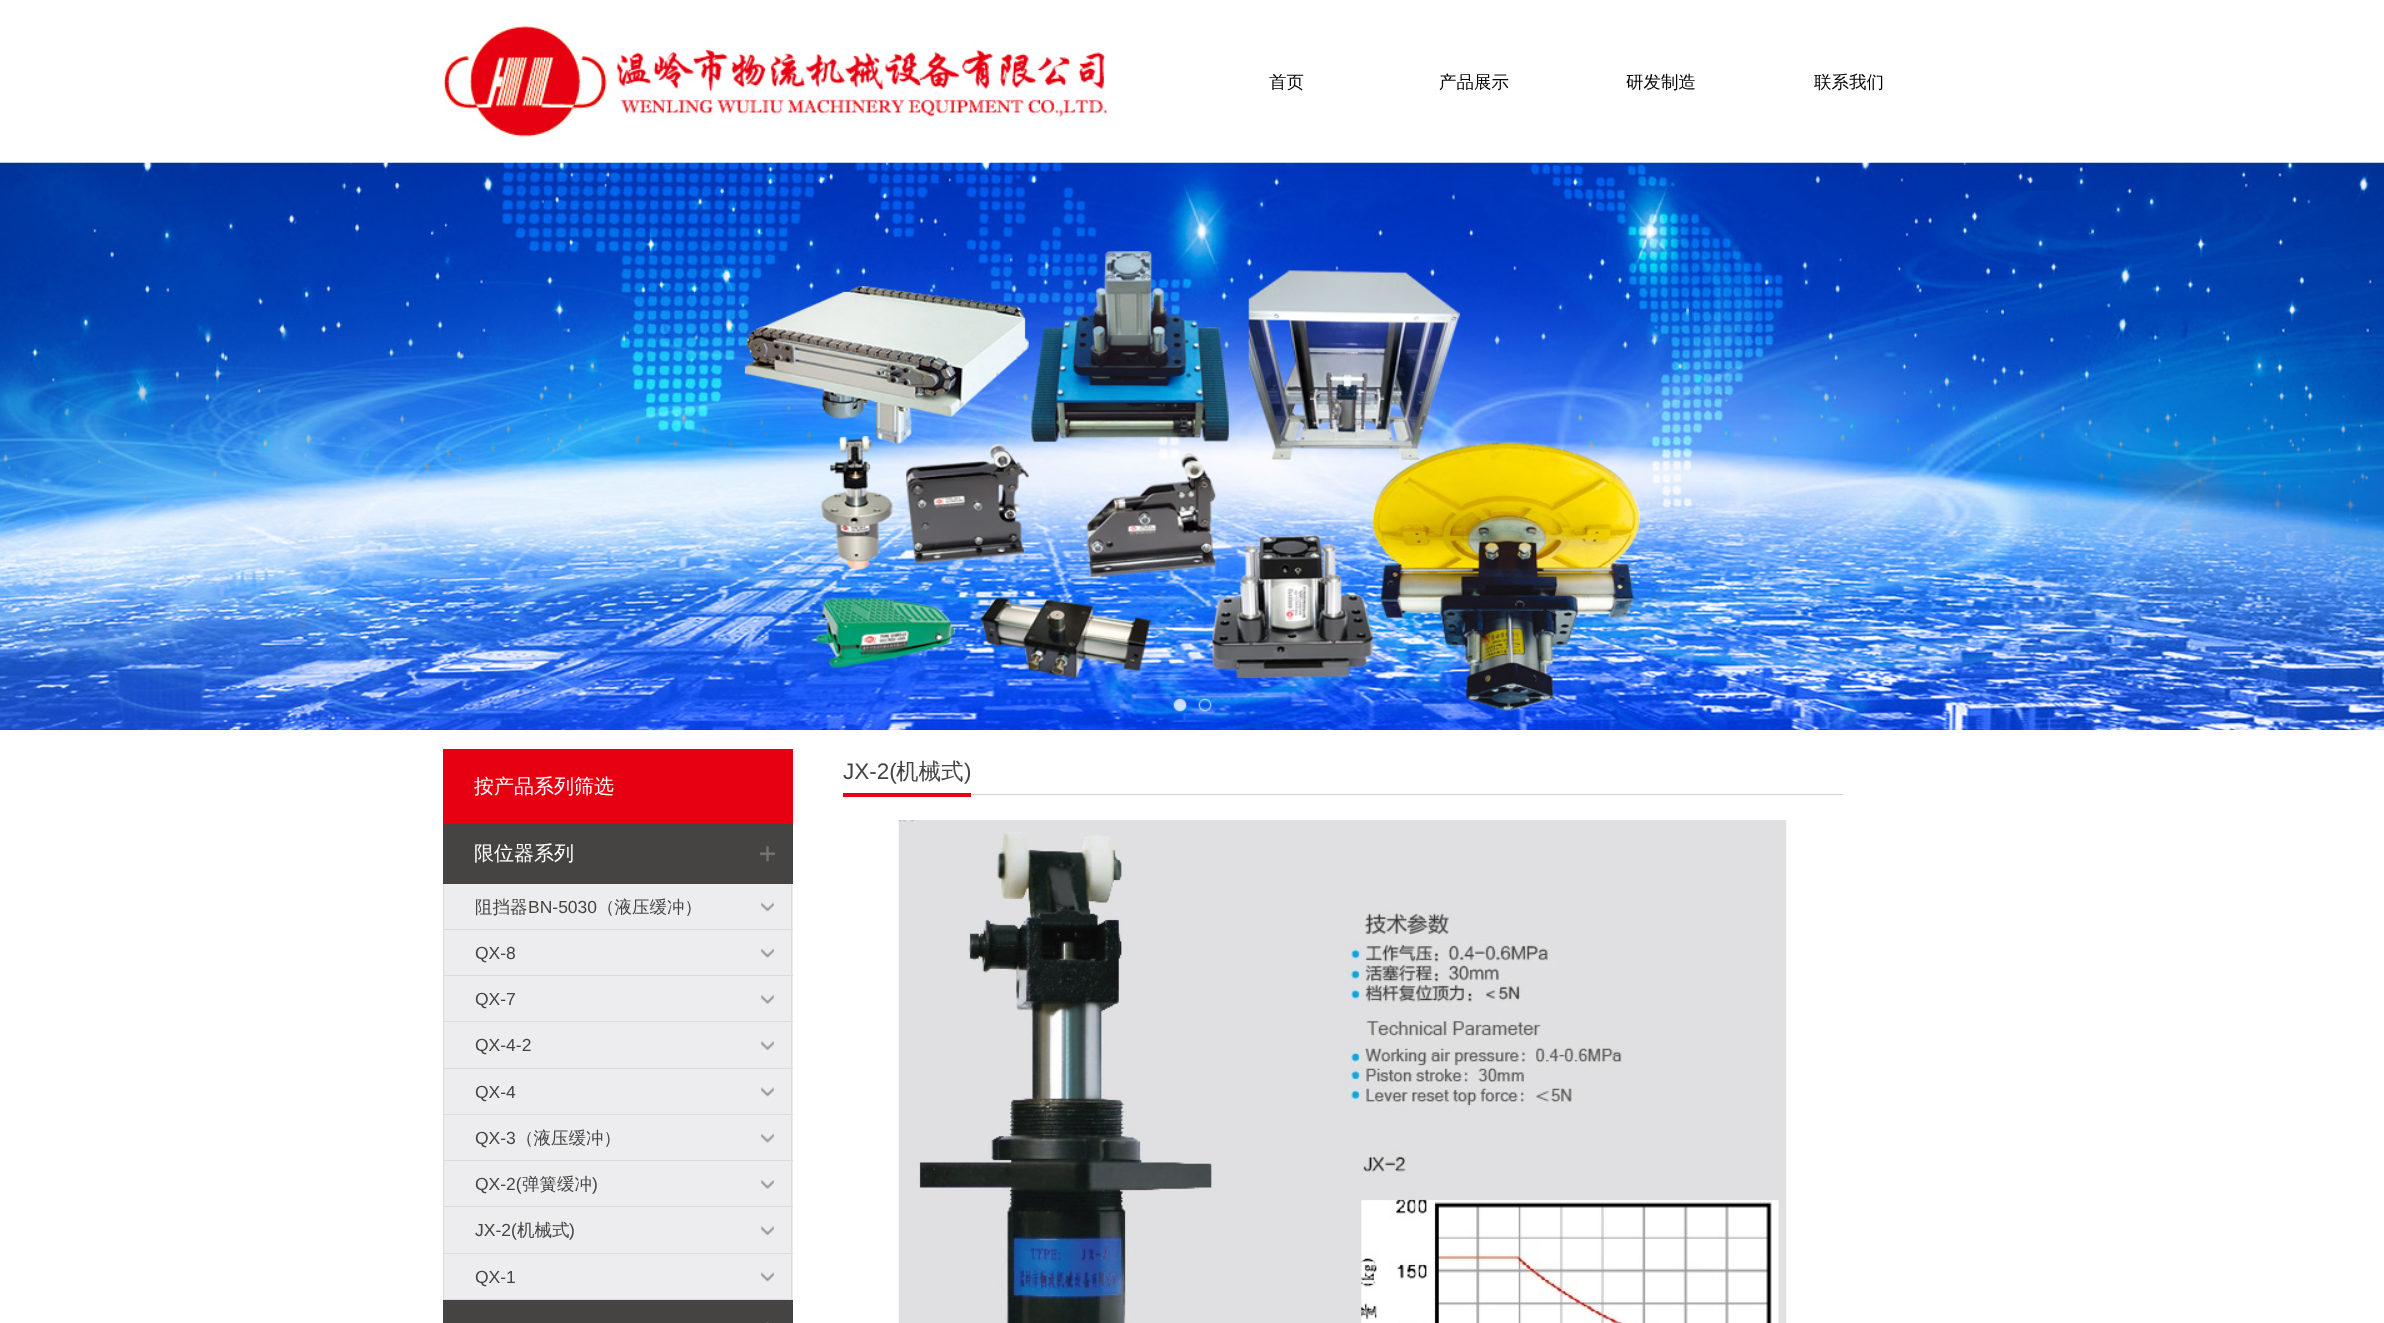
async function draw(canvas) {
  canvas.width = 2384
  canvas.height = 1323
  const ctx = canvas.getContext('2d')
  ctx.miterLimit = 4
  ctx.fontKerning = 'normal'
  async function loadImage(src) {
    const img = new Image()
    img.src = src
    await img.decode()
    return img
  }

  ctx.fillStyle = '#fff'
  ctx.fillRect(0, 0, 2384, 1323)
  ctx.drawImage(await loadImage('image0.png'), 443, 24, 665, 117)
  ctx.font = '500 17.5px WenQuanYi Zen Hei'
  ctx.fillStyle = '#000'
  ctx.fillText('首页', 1269, 88)
  ctx.fillText('产品展示', 1439, 88)
  ctx.fillText('研发制造', 1626, 88)
  ctx.fillText('联系我们', 1814, 88)
  ctx.drawImage(await loadImage('image1.png'), 0, 162, 2384, 568)
  ctx.drawImage(await loadImage('image2.png'), 1173, 698, 14, 14)
  ctx.drawImage(await loadImage('image3.png'), 1198, 698, 14, 14)
  ctx.fillStyle = '#cfcfcf'
  ctx.fillRect(971, 794, 872, 1)
  ctx.font = '22.5px Liberation Sans'
  ctx.fillStyle = '#464442'
  ctx.fillText('JX-2(', 843, 779)
  ctx.font = '500 22.5px WenQuanYi Zen Hei'
  ctx.fillText('机械式', 896, 779)
  ctx.font = '22.5px Liberation Sans'
  ctx.fillText(')', 964, 779)
  ctx.fillStyle = '#e70012'
  ctx.fillRect(843, 793, 128, 4)
  ctx.drawImage(await loadImage('image4.png'), 898, 820, 889, 503)
  ctx.fillRect(443, 749, 350, 75)
  ctx.font = '500 20px WenQuanYi Zen Hei'
  ctx.fillStyle = '#fff'
  ctx.fillText('按产品系列筛选', 474, 793)
  ctx.fillStyle = '#464442'
  ctx.fillRect(443, 824, 350, 60)
  ctx.drawImage(await loadImage('image5.png'), 760, 846, 15, 16)
  ctx.fillStyle = '#fff'
  ctx.fillText('限位器系列', 474, 860)
  ctx.fillStyle = '#ededef'
  ctx.fillRect(444, 884, 349, 45)
  ctx.fillStyle = '#dbdbdd'
  ctx.fillRect(791, 884, 1, 46)
  ctx.fillRect(443, 929, 350, 1)
  ctx.fillRect(443, 884, 1, 46)
  ctx.drawImage(await loadImage('image6.png'), 761, 902, 13, 10)
  ctx.font = '500 17.5px WenQuanYi Zen Hei'
  ctx.fillStyle = '#464442'
  ctx.fillText('阻挡器', 475, 913)
  ctx.font = '17.5px Liberation Sans'
  ctx.fillText('BN-5030', 528, 913)
  ctx.font = '500 17.5px WenQuanYi Zen Hei'
  ctx.fillText('（液压缓冲）', 597, 913)
  ctx.fillStyle = '#ededef'
  ctx.fillRect(444, 930, 349, 45)
  ctx.fillStyle = '#dbdbdd'
  ctx.fillRect(791, 930, 1, 46)
  ctx.fillRect(443, 975, 350, 1)
  ctx.fillRect(443, 930, 1, 46)
  ctx.drawImage(await loadImage('image7.png'), 761, 948, 13, 10)
  ctx.font = '17.5px Liberation Sans'
  ctx.fillStyle = '#464442'
  ctx.fillText('QX-8', 475, 959)
  ctx.fillStyle = '#ededef'
  ctx.fillRect(444, 976, 349, 92)
  ctx.fillStyle = '#dbdbdd'
  ctx.fillRect(791, 976, 1, 93)
  ctx.fillRect(443, 1021, 350, 1)
  ctx.fillRect(443, 976, 1, 47)
  ctx.drawImage(await loadImage('image8.png'), 761, 995, 13, 9)
  ctx.fillStyle = '#464442'
  ctx.fillText('QX-7', 475, 1005)
  ctx.fillStyle = '#dbdbdd'
  ctx.fillRect(443, 1068, 350, 1)
  ctx.fillRect(443, 1023, 1, 46)
  ctx.drawImage(await loadImage('image9.png'), 761, 1041, 13, 9)
  ctx.fillStyle = '#464442'
  ctx.fillText('QX-4-2', 475, 1051)
  ctx.fillStyle = '#ededef'
  ctx.fillRect(444, 1069, 349, 45)
  ctx.fillStyle = '#dbdbdd'
  ctx.fillRect(791, 1069, 1, 46)
  ctx.fillRect(443, 1114, 350, 1)
  ctx.fillRect(443, 1069, 1, 46)
  ctx.drawImage(await loadImage('image6.png'), 761, 1087, 13, 10)
  ctx.fillStyle = '#464442'
  ctx.fillText('QX-4', 475, 1098)
  ctx.fillStyle = '#ededef'
  ctx.fillRect(444, 1115, 349, 45)
  ctx.fillStyle = '#dbdbdd'
  ctx.fillRect(791, 1115, 1, 46)
  ctx.fillRect(443, 1160, 350, 1)
  ctx.fillRect(443, 1115, 1, 46)
  ctx.drawImage(await loadImage('image7.png'), 761, 1133, 13, 10)
  ctx.fillStyle = '#464442'
  ctx.fillText('QX-3', 475, 1144)
  ctx.font = '500 17.5px WenQuanYi Zen Hei'
  ctx.fillText('（液压缓冲）', 516, 1144)
  ctx.fillStyle = '#ededef'
  ctx.fillRect(444, 1161, 349, 92)
  ctx.fillStyle = '#dbdbdd'
  ctx.fillRect(791, 1161, 1, 93)
  ctx.fillRect(443, 1206, 350, 1)
  ctx.fillRect(443, 1161, 1, 47)
  ctx.drawImage(await loadImage('image8.png'), 761, 1180, 13, 9)
  ctx.font = '17.5px Liberation Sans'
  ctx.fillStyle = '#464442'
  ctx.fillText('QX-2(', 475, 1190)
  ctx.font = '500 17.5px WenQuanYi Zen Hei'
  ctx.fillText('弹簧缓冲', 522, 1190)
  ctx.font = '17.5px Liberation Sans'
  ctx.fillText(')', 592, 1190)
  ctx.fillStyle = '#dbdbdd'
  ctx.fillRect(443, 1253, 350, 1)
  ctx.fillRect(443, 1208, 1, 46)
  ctx.drawImage(await loadImage('image9.png'), 761, 1226, 13, 9)
  ctx.fillStyle = '#464442'
  ctx.fillText('JX-2(', 475, 1236)
  ctx.font = '500 17.5px WenQuanYi Zen Hei'
  ctx.fillText('机械式', 517, 1236)
  ctx.font = '17.5px Liberation Sans'
  ctx.fillText(')', 569, 1236)
  ctx.fillStyle = '#ededef'
  ctx.fillRect(444, 1254, 349, 45)
  ctx.fillStyle = '#dbdbdd'
  ctx.fillRect(791, 1254, 1, 46)
  ctx.fillRect(443, 1299, 350, 1)
  ctx.fillRect(443, 1254, 1, 46)
  ctx.drawImage(await loadImage('image6.png'), 761, 1272, 13, 10)
  ctx.fillStyle = '#464442'
  ctx.fillText('QX-1', 475, 1283)
  ctx.fillRect(443, 1300, 350, 23)
  ctx.drawImage(await loadImage('image10.png'), 766, 1322, 3, 1)
}

draw(document.querySelector('canvas'))
